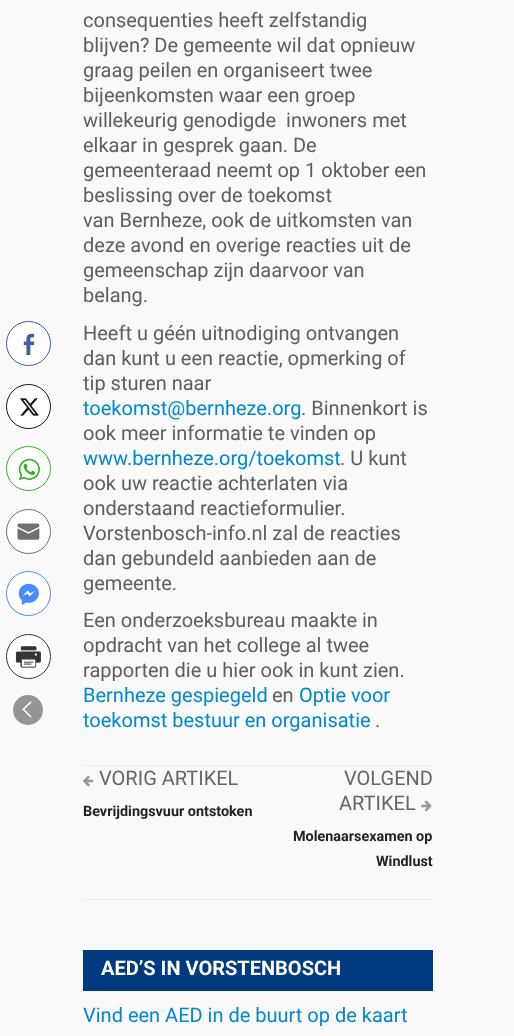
async function draw(canvas) {
  canvas.width = 514
  canvas.height = 1036
  const ctx = canvas.getContext('2d')
  ctx.miterLimit = 4
  ctx.fontKerning = 'normal'
  async function loadImage(src) {
    const img = new Image()
    img.src = src
    await img.decode()
    return img
  }

  ctx.fillStyle = '#f9f9f9'
  ctx.fillRect(0, 0, 514, 1036)
  ctx.fillStyle = '#fff'
  ctx.beginPath()
  ctx.arc(28.5, 343.5, 22, 0, 2 * Math.PI)
  ctx.fill()
  ctx.strokeStyle = '#43609c'
  ctx.stroke()
  ctx.drawImage(await loadImage('image0.png'), 23, 333, 12, 23)
  ctx.beginPath()
  ctx.arc(28.5, 406.5, 22, 0, 2 * Math.PI)
  ctx.fill()
  ctx.strokeStyle = '#0f1419'
  ctx.stroke()
  ctx.drawImage(await loadImage('image1.png'), 20, 398, 19, 18)
  ctx.beginPath()
  ctx.arc(28.5, 468.5, 22, 0, 2 * Math.PI)
  ctx.fill()
  ctx.strokeStyle = '#34af23'
  ctx.stroke()
  ctx.drawImage(await loadImage('image2.png'), 18, 458, 22, 22)
  ctx.beginPath()
  ctx.arc(28.5, 531.5, 22, 0, 2 * Math.PI)
  ctx.fill()
  ctx.strokeStyle = '#717070'
  ctx.stroke()
  ctx.drawImage(await loadImage('image3.png'), 17, 523, 23, 17)
  ctx.beginPath()
  ctx.arc(28.5, 593.5, 22, 0, 2 * Math.PI)
  ctx.fill()
  ctx.strokeStyle = '#468bff'
  ctx.stroke()
  ctx.drawImage(await loadImage('image4.png'), 18, 583, 21, 22)
  ctx.beginPath()
  ctx.arc(28.5, 656.5, 22, 0, 2 * Math.PI)
  ctx.fill()
  ctx.strokeStyle = '#353535'
  ctx.stroke()
  ctx.drawImage(await loadImage('image5.png'), 15, 646, 26, 22)
  ctx.fillStyle = '#959595'
  ctx.beginPath()
  ctx.arc(28, 710, 15, 0, 2 * Math.PI)
  ctx.fill()
  ctx.drawImage(await loadImage('image6.png'), 22, 701, 10, 17)
  ctx.font = '20px Roboto'
  ctx.fillStyle = '#5e5e5e'
  ctx.fillText('consequenties heeft zelfstandig', 83, 27)
  ctx.fillText('blijven? De gemeente wil dat opnieuw', 83, 52)
  ctx.fillText('graag peilen en organiseert twee', 83, 77)
  ctx.fillText('bijeenkomsten waar een groep', 83, 102)
  ctx.fillText('willekeurig genodigde  inwoners met', 83, 127)
  ctx.fillText('elkaar in gesprek gaan. De', 83, 152)
  ctx.fillText('gemeenteraad neemt op 1 oktober een', 83, 177)
  ctx.fillText('beslissing over de toekomst', 83, 202)
  ctx.fillText('van Bernheze, ook de uitkomsten van', 83, 227)
  ctx.fillText('deze avond en overige reacties uit de', 83, 252)
  ctx.fillText('gemeenschap zijn daarvoor van', 83, 277)
  ctx.fillText('belang.', 83, 302)
  ctx.fillText('Heeft u géén uitnodiging ontvangen', 83, 340)
  ctx.fillText('dan kunt u een reactie, opmerking of', 83, 365)
  ctx.fillText('tip sturen naar', 83, 390)
  ctx.fillStyle = '#08c'
  ctx.fillText('toekomst@bernheze.org', 83, 415)
  ctx.fillStyle = '#5e5e5e'
  ctx.fillText('. Binnenkort is', 301, 415)
  ctx.fillText('ook meer informatie te vinden op', 83, 440)
  ctx.fillStyle = '#08c'
  ctx.fillText('www.bernheze.org/toekomst', 83, 465)
  ctx.fillStyle = '#5e5e5e'
  ctx.fillText('. U kunt', 340, 465)
  ctx.fillText('ook uw reactie achterlaten via', 83, 490)
  ctx.fillText('onderstaand reactieformulier.', 83, 515)
  ctx.fillText('Vorstenbosch-info.nl zal de reacties', 83, 540)
  ctx.fillText('dan gebundeld aanbieden aan de', 83, 565)
  ctx.fillText('gemeente.', 83, 590)
  ctx.fillText('Een onderzoeksbureau maakte in', 83, 627)
  ctx.fillText('opdracht van het college al twee', 83, 652)
  ctx.fillText('rapporten die u hier ook in kunt zien.', 83, 677)
  ctx.fillStyle = '#08c'
  ctx.fillText('Bernheze gespiegeld', 83, 702)
  ctx.fillStyle = '#5e5e5e'
  ctx.fillText('en', 272, 702)
  ctx.fillStyle = '#08c'
  ctx.fillText('Optie voor', 299, 702)
  ctx.fillText('toekomst bestuur en organisatie', 83, 727)
  ctx.fillStyle = '#5e5e5e'
  ctx.fillText('.', 375, 727)
  ctx.fillStyle = '#eaeaea'
  ctx.fillRect(83, 765, 350, 1)
  ctx.fillRect(83, 899, 350, 1)
  ctx.drawImage(await loadImage('image7.png'), 83, 775, 11, 12)
  ctx.fillStyle = '#666'
  ctx.fillText('VORIG ARTIKEL', 99, 785)
  ctx.font = 'bold 14.4px Roboto'
  ctx.fillStyle = '#222'
  ctx.fillText('Bevrijdingsvuur ontstoken', 83, 816)
  ctx.font = '20px Roboto'
  ctx.fillStyle = '#666'
  ctx.fillText('VOLGEND', 344, 785)
  ctx.fillText('ARTIKEL', 339, 810)
  ctx.drawImage(await loadImage('image8.png'), 421, 800, 11, 12)
  ctx.font = 'bold 14.4px Roboto'
  ctx.fillStyle = '#222'
  ctx.fillText('Molenaarsexamen op', 293, 841)
  ctx.fillText('Windlust', 376, 866)
  ctx.fillStyle = '#003b7f'
  ctx.fillRect(83, 950, 350, 41)
  ctx.font = 'bold 20px Roboto'
  ctx.fillStyle = '#fff'
  ctx.fillText('AED’S IN VORSTENBOSCH', 101, 975)
  ctx.font = '20px Roboto'
  ctx.fillStyle = '#08c'
  ctx.fillText('Vind een AED in de buurt op de kaart', 83, 1022)
}

draw(document.querySelector('canvas'))
